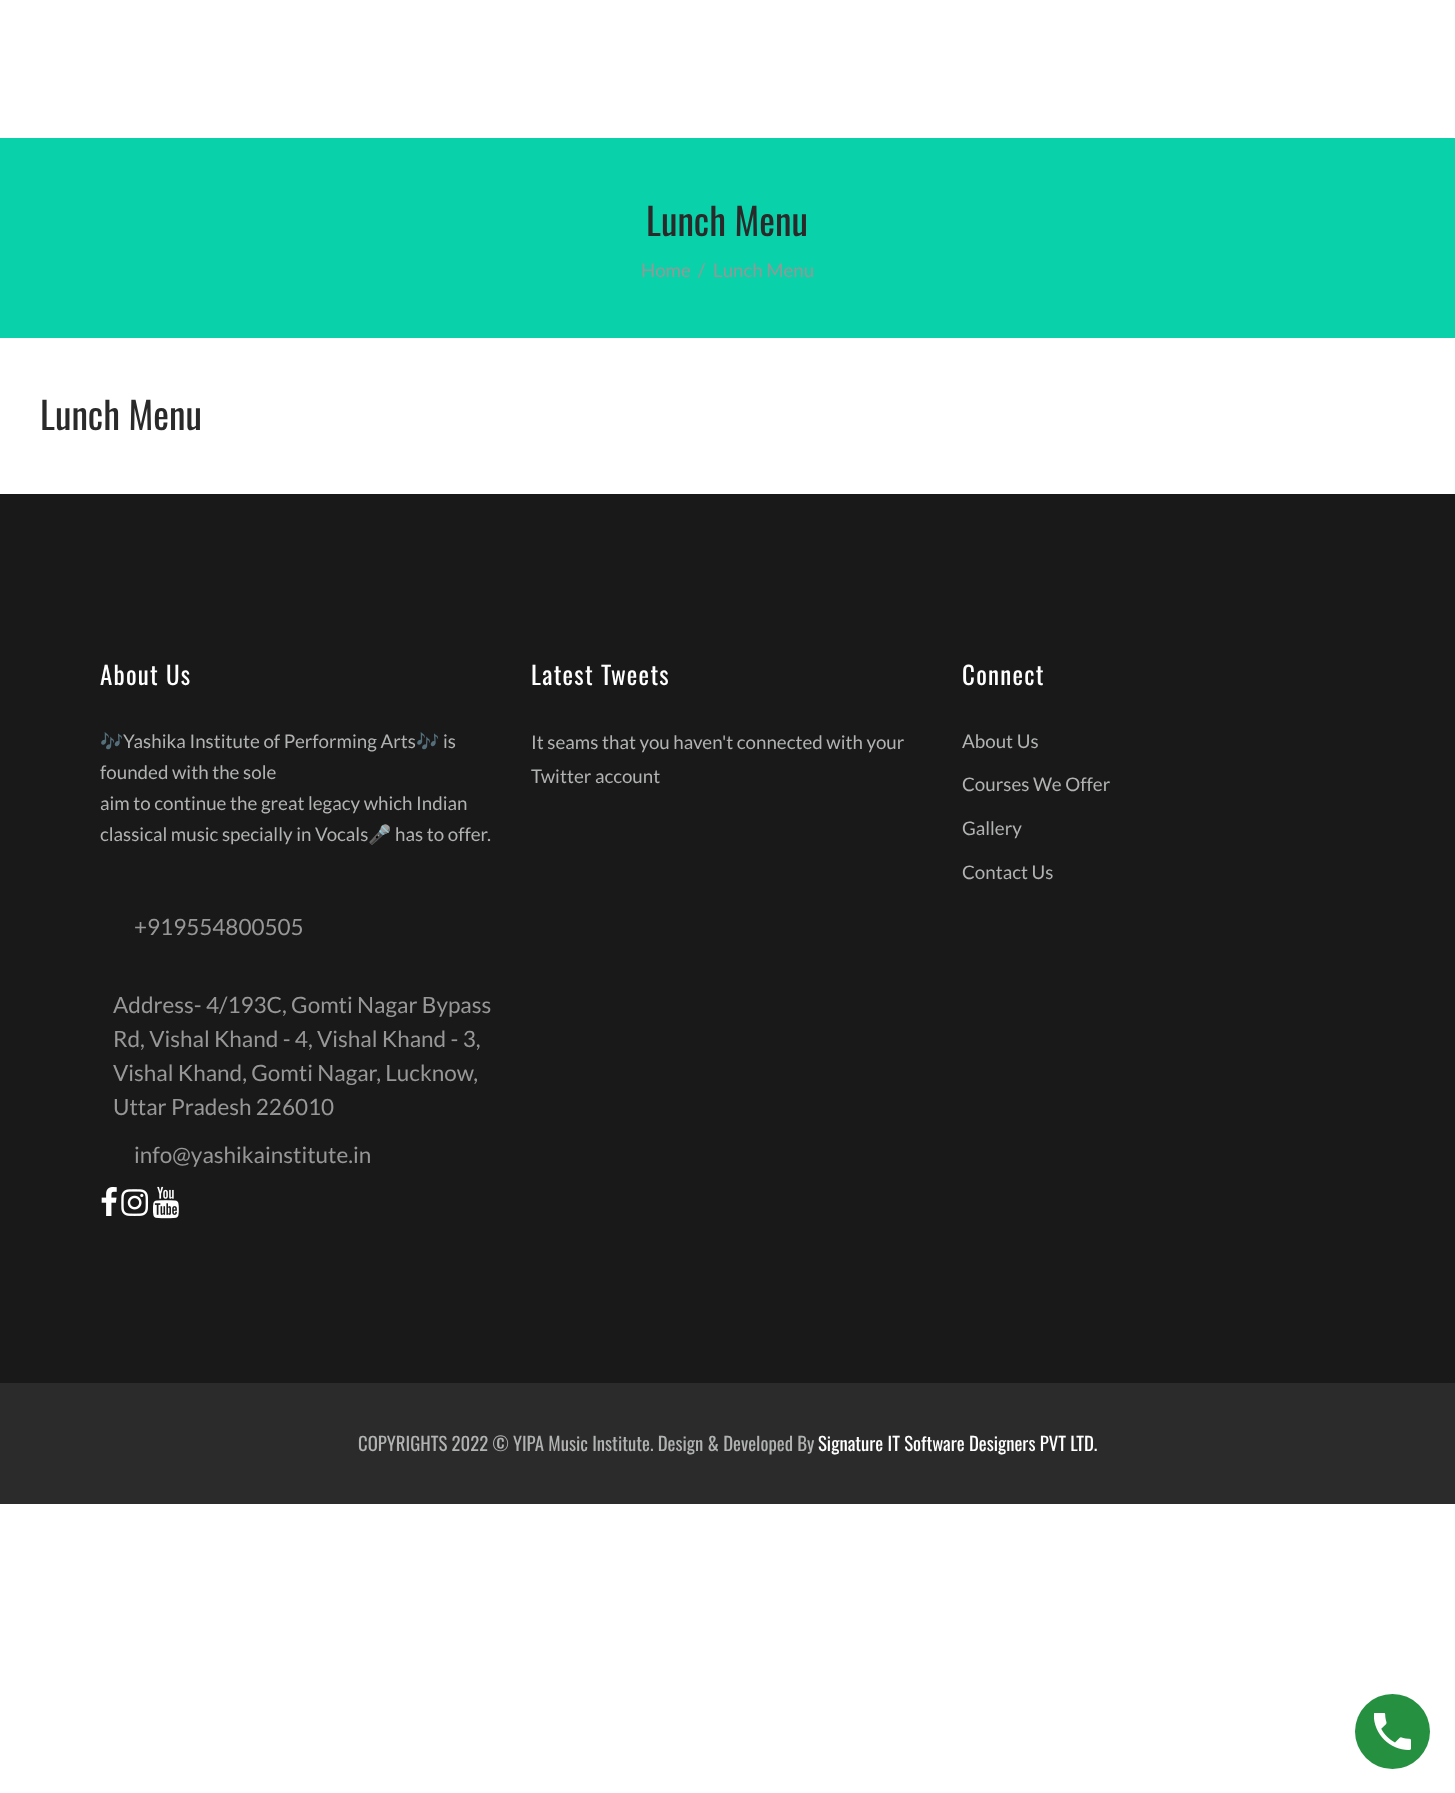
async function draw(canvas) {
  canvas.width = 1455
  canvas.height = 1793
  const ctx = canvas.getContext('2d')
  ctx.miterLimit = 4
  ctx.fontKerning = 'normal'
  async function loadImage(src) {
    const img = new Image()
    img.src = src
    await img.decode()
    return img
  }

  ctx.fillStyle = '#fff'
  ctx.fillRect(0, 0, 1455, 1793)
  ctx.fillStyle = '#09d2aa'
  ctx.fillRect(0, 138, 1455, 200)
  ctx.font = '37.5px Oswald'
  ctx.fillStyle = '#2a2a2a'
  ctx.fillText('Lunch Menu', 646, 236)
  ctx.font = '18.75px Lato'
  ctx.fillStyle = '#979797'
  ctx.fillText('Home', 641, 277)
  ctx.fillText('/', 698, 277)
  ctx.fillText('Lunch Menu', 713, 277)
  ctx.font = '37.5px Oswald'
  ctx.fillStyle = '#2a2a2a'
  ctx.fillText('Lunch Menu', 40, 430)
  ctx.fillStyle = '#191919'
  ctx.fillRect(0, 494, 1455, 889)
  ctx.letterSpacing = '1.25px'
  ctx.font = '25px Oswald'
  ctx.fillStyle = '#fff'
  ctx.fillText('About Us', 100, 685)
  ctx.letterSpacing = '0px'
  ctx.font = '18.75px Noto Color Emoji'
  ctx.fillStyle = '#b1b2b2'
  ctx.fillText('🎶', 100, 748)
  ctx.font = '18.75px Lato'
  ctx.fillText('Yashika Institute of Performing Arts', 123, 748)
  ctx.font = '18.75px Noto Color Emoji'
  ctx.fillText('🎶', 416, 748)
  ctx.font = '18.75px Lato'
  ctx.fillText('is', 443, 748)
  ctx.fillText('founded with the sole', 100, 779)
  ctx.fillText('aim to continue the great legacy which Indian', 100, 810)
  ctx.fillText('classical music specially in Vocals', 100, 841)
  ctx.font = '18.75px Noto Color Emoji'
  ctx.fillText('🎤', 368, 841)
  ctx.font = '18.75px Lato'
  ctx.fillText('has to offer.', 395, 841)
  ctx.font = '22.5px Lato'
  ctx.fillStyle = '#979797'
  ctx.fillText('+919554800505', 134, 935)
  ctx.fillText('Address- 4/193C, Gomti Nagar Bypass', 113, 1013)
  ctx.fillText('Rd, Vishal Khand - 4, Vishal Khand - 3,', 113, 1047)
  ctx.fillText('Vishal Khand, Gomti Nagar, Lucknow,', 113, 1081)
  ctx.fillText('Uttar Pradesh 226010', 113, 1115)
  ctx.fillText('info@yashikainstitute.in', 134, 1163)
  ctx.drawImage(await loadImage('image0.png'), 101, 1187, 16, 29)
  ctx.drawImage(await loadImage('image1.png'), 121, 1189, 28, 27)
  ctx.drawImage(await loadImage('image2.png'), 153, 1186, 26, 33)
  ctx.letterSpacing = '1.25px'
  ctx.font = '25px Oswald'
  ctx.fillStyle = '#fff'
  ctx.fillText('Latest Tweets', 531, 685)
  ctx.letterSpacing = '0px'
  ctx.font = '18.75px Lato'
  ctx.fillStyle = '#b1b2b2'
  ctx.fillText('It seams that you haven\'t connected with your', 531, 749)
  ctx.fillText('Twitter account', 531, 783)
  ctx.letterSpacing = '1.25px'
  ctx.font = '25px Oswald'
  ctx.fillStyle = '#fff'
  ctx.fillText('Connect', 962, 685)
  ctx.letterSpacing = '0px'
  ctx.font = '18.75px Lato'
  ctx.fillStyle = '#b1b2b2'
  ctx.fillText('About Us', 962, 748)
  ctx.fillText('Courses We Offer', 962, 791)
  ctx.fillText('Gallery', 962, 835)
  ctx.fillText('Contact Us', 962, 879)
  ctx.fillStyle = '#2b2b2b'
  ctx.fillRect(0, 1383, 1455, 121)
  ctx.font = '18.75px Oswald'
  ctx.fillStyle = '#b1b2b2'
  ctx.fillText('COPYRIGHTS 2022 © YIPA Music Institute. Design & Developed By', 358, 1451)
  ctx.fillStyle = '#fff'
  ctx.fillText('Signature IT Software Designers PVT LTD.', 818, 1451)
  ctx.fillStyle = '#269041'
  ctx.beginPath()
  ctx.arc(1392.5, 1731.5, 37.5, 0, 2 * Math.PI)
  ctx.fill()
  ctx.drawImage(await loadImage('image3.png'), 1374, 1713, 37, 37)
}

draw(document.querySelector('canvas'))
